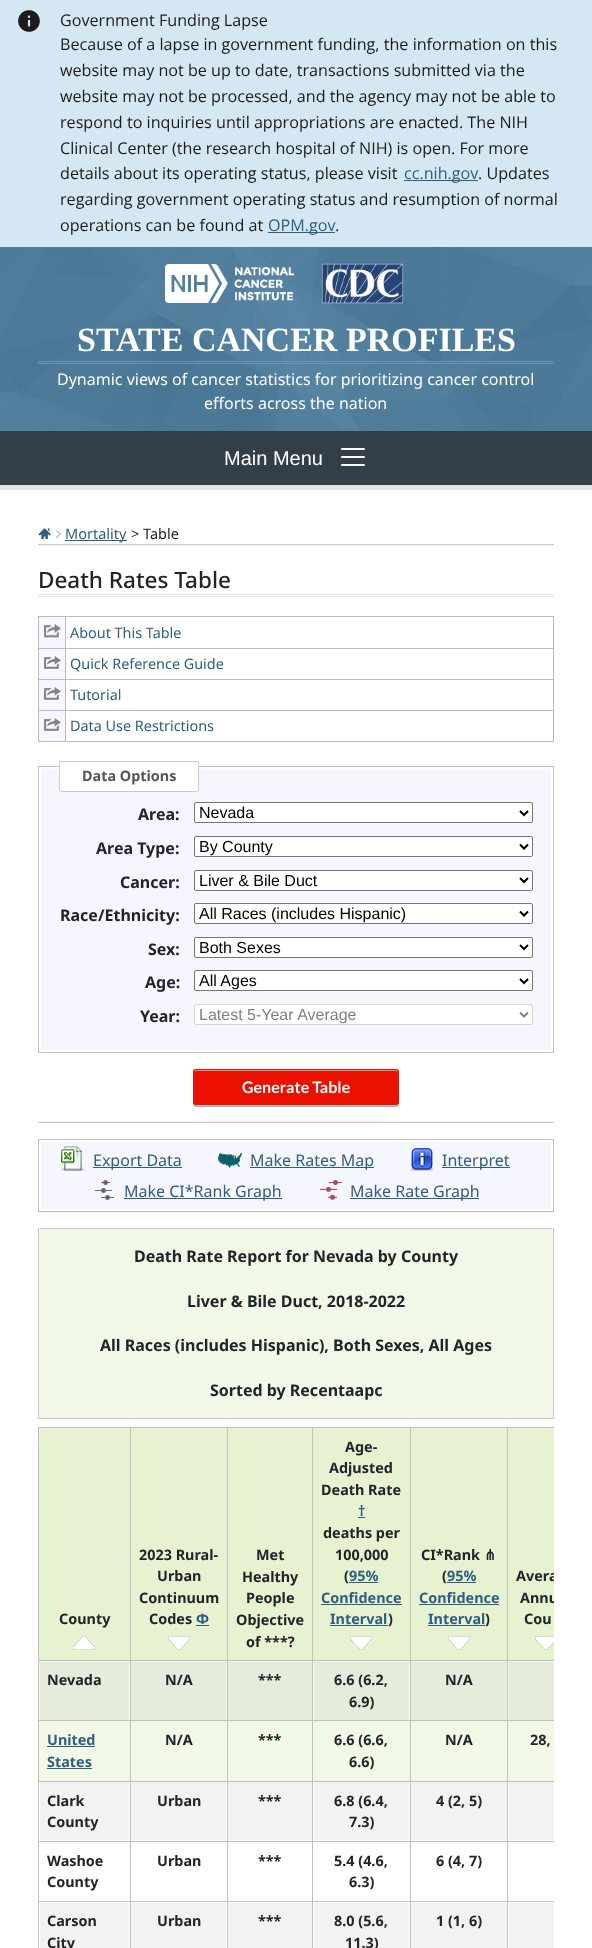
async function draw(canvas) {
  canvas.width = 592
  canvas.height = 1948
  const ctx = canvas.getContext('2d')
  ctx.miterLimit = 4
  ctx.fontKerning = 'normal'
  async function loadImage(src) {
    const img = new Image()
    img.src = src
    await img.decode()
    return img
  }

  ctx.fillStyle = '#fff'
  ctx.fillRect(0, 0, 592, 1948)
  ctx.fillStyle = '#d4e7f2'
  ctx.fillRect(0, 0, 592, 247)
  ctx.drawImage(await loadImage('image0.png'), 18, 10, 22, 22)
  ctx.font = '16.15px Open Sans'
  ctx.fillStyle = '#1b1b1b'
  ctx.fillText('Government Funding Lapse', 60, 26)
  ctx.fillText('Because of a lapse in government funding, the information on this', 60, 50)
  ctx.fillText('website may not be up to date, transactions submitted via the', 60, 76)
  ctx.fillText('website may not be processed, and the agency may not be able to', 60, 102)
  ctx.fillText('respond to inquiries until appropriations are enacted. The NIH', 60, 128)
  ctx.fillText('Clinical Center (the research hospital of NIH) is open. For more', 60, 154)
  ctx.fillText('details about its operating status, please visit', 60, 179)
  ctx.fillStyle = '#305d83'
  ctx.fillRect(404, 180, 74, 1)
  ctx.fillText('cc.nih.gov', 404, 179)
  ctx.fillStyle = '#1b1b1b'
  ctx.fillText('. Updates', 478, 179)
  ctx.fillText('regarding government operating status and resumption of normal', 60, 205)
  ctx.fillText('operations can be found at', 60, 231)
  ctx.fillStyle = '#305d83'
  ctx.fillRect(268, 232, 67, 1)
  ctx.fillText('OPM.gov', 268, 231)
  ctx.fillStyle = '#1b1b1b'
  ctx.fillText('.', 335, 231)
  ctx.drawImage(await loadImage('image1.png'), 0, 247, 592, 184)
  ctx.drawImage(await loadImage('image2.png'), 165, 264, 129, 39)
  ctx.drawImage(await loadImage('image3.png'), 321, 263, 83, 41)
  ctx.fillStyle = '#6a93b1'
  ctx.fillRect(38, 361, 516, 1)
  ctx.fillRect(38, 363, 516, 1)
  ctx.font = 'bold 34px Liberation Serif'
  ctx.fillStyle = '#fff'
  ctx.fillText('STATE CANCER PROFILES', 77, 351)
  ctx.font = '16px Noto Sans'
  ctx.fillText('Dynamic views of cancer statistics for prioritizing cancer control', 57, 385)
  ctx.fillText('efforts across the nation', 204, 409)
  ctx.fillStyle = '#333f48'
  ctx.fillRect(0, 431, 592, 54)
  ctx.fillStyle = '#e4e4e4'
  ctx.fillRect(0, 485, 592, 5)
  ctx.font = '20px Liberation Sans'
  ctx.fillStyle = '#fff'
  ctx.fillText('Main Menu', 224, 465)
  ctx.drawImage(await loadImage('image4.png'), 341, 448, 24, 18)
  ctx.save()
  ctx.beginPath()
  ctx.moveTo(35, 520)
  ctx.lineTo(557, 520)
  ctx.lineTo(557, 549)
  ctx.lineTo(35, 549)
  ctx.closePath()
  ctx.moveTo(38, 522)
  ctx.lineTo(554, 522)
  ctx.lineTo(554, 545)
  ctx.lineTo(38, 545)
  ctx.closePath()
  ctx.clip('evenodd')
  ctx.fillStyle = '#eee'
  ctx.filter = 'blur(0.5px)'
  ctx.beginPath()
  ctx.rect(38, 523, 516, 23)
  ctx.fill()
  ctx.filter = 'none'
  ctx.restore()
  ctx.fillStyle = '#ccc'
  ctx.fillRect(38, 544, 516, 1)
  ctx.drawImage(await loadImage('image5.png'), 38, 528, 13, 11)
  ctx.drawImage(await loadImage('image6.png'), 55, 530, 6, 8)
  ctx.fillStyle = '#305d83'
  ctx.fillRect(65, 540, 62, 1)
  ctx.font = '14.5px Noto Sans'
  ctx.fillText('Mortality', 65, 539)
  ctx.fillStyle = '#212529'
  ctx.fillText('> Table', 131, 539)
  ctx.fillStyle = '#e4e4e4'
  ctx.fillRect(38, 594, 516, 1)
  ctx.fillRect(38, 596, 516, 1)
  ctx.font = '500 22.5px Noto Sans'
  ctx.fillStyle = '#212529'
  ctx.fillText('Death Rates Table', 38, 588)
  ctx.fillStyle = '#f6f6ff'
  ctx.fillRect(39, 617, 26, 124)
  ctx.fillStyle = '#bbb'
  ctx.fillRect(38, 616, 516, 1)
  ctx.fillRect(553, 616, 1, 126)
  ctx.fillRect(38, 616, 1, 126)
  ctx.fillRect(39, 648, 514, 1)
  ctx.drawImage(await loadImage('image7.png'), 44, 624, 17, 15)
  ctx.fillRect(65, 617, 1, 31)
  ctx.font = '14.4px Noto Sans'
  ctx.fillStyle = '#305d83'
  ctx.fillText('About This Table', 70, 638)
  ctx.fillStyle = '#bbb'
  ctx.fillRect(39, 679, 514, 1)
  ctx.drawImage(await loadImage('image8.png'), 44, 656, 17, 14)
  ctx.fillRect(65, 649, 1, 30)
  ctx.fillStyle = '#305d83'
  ctx.fillText('Quick Reference Guide', 70, 669)
  ctx.fillStyle = '#bbb'
  ctx.fillRect(39, 710, 514, 1)
  ctx.drawImage(await loadImage('image8.png'), 44, 687, 17, 14)
  ctx.fillRect(65, 680, 1, 30)
  ctx.fillStyle = '#305d83'
  ctx.fillText('Tutorial', 70, 700)
  ctx.fillStyle = '#bbb'
  ctx.fillRect(39, 741, 514, 1)
  ctx.drawImage(await loadImage('image8.png'), 44, 718, 17, 14)
  ctx.fillRect(65, 711, 1, 30)
  ctx.fillStyle = '#305d83'
  ctx.fillText('Data Use Restrictions', 70, 731)
  ctx.fillStyle = '#f6f6ff'
  ctx.fillRect(41, 769, 510, 281)
  ctx.strokeStyle = '#c0c0c0'
  ctx.strokeRect(38.5, 766.5, 515, 286)
  ctx.fillStyle = '#fff'
  ctx.beginPath()
  ctx.roundRect(59.5, 761.5, 139, 30, [0, 0, 2.5, 2.5])
  ctx.fill()
  ctx.strokeStyle = '#ccc'
  ctx.stroke()
  ctx.font = 'bold 14.4px Noto Sans'
  ctx.fillStyle = '#555'
  ctx.fillText('Data Options', 82, 781)
  ctx.font = 'bold 16px Noto Sans'
  ctx.fillStyle = '#212529'
  ctx.fillText('Area:', 138, 820)
  ctx.fillStyle = '#fff'
  ctx.beginPath()
  ctx.roundRect(194.5, 802.5, 338, 20, 1.5)
  ctx.fill()
  ctx.strokeStyle = '#767676'
  ctx.stroke()
  ctx.beginPath()
  ctx.moveTo(520, 811)
  ctx.lineTo(524, 815)
  ctx.lineTo(528, 811)
  ctx.strokeStyle = '#000'
  ctx.lineWidth = 2
  ctx.stroke()
  ctx.font = '16px Liberation Sans'
  ctx.fillStyle = '#000'
  ctx.fillText('Nevada', 199, 818)
  ctx.font = 'bold 16px Noto Sans'
  ctx.fillStyle = '#212529'
  ctx.fillText('Area Type:', 96, 854)
  ctx.fillStyle = '#fff'
  ctx.beginPath()
  ctx.roundRect(194.5, 836.5, 338, 20, 1.5)
  ctx.fill()
  ctx.strokeStyle = '#767676'
  ctx.lineWidth = 1
  ctx.stroke()
  ctx.beginPath()
  ctx.moveTo(520, 844.5)
  ctx.lineTo(524, 848.5)
  ctx.lineTo(528, 844.5)
  ctx.strokeStyle = '#000'
  ctx.lineWidth = 2
  ctx.stroke()
  ctx.font = '16px Liberation Sans'
  ctx.fillStyle = '#000'
  ctx.fillText('By County', 199, 852)
  ctx.font = 'bold 16px Noto Sans'
  ctx.fillStyle = '#212529'
  ctx.fillText('Cancer:', 120, 888)
  ctx.fillStyle = '#fff'
  ctx.beginPath()
  ctx.roundRect(194.5, 870.5, 338, 20, 1.5)
  ctx.fill()
  ctx.strokeStyle = '#767676'
  ctx.lineWidth = 1
  ctx.stroke()
  ctx.beginPath()
  ctx.moveTo(520, 878)
  ctx.lineTo(524, 882)
  ctx.lineTo(528, 878)
  ctx.strokeStyle = '#000'
  ctx.lineWidth = 2
  ctx.stroke()
  ctx.font = '16px Liberation Sans'
  ctx.fillStyle = '#000'
  ctx.fillText('Liver & Bile Duct', 199, 886)
  ctx.font = 'bold 16px Noto Sans'
  ctx.fillStyle = '#212529'
  ctx.fillText('Race/Ethnicity:', 60, 921)
  ctx.fillStyle = '#fff'
  ctx.beginPath()
  ctx.roundRect(194.5, 903.5, 338, 20, 1.5)
  ctx.fill()
  ctx.strokeStyle = '#767676'
  ctx.lineWidth = 1
  ctx.stroke()
  ctx.beginPath()
  ctx.moveTo(520, 911.5)
  ctx.lineTo(524, 915.5)
  ctx.lineTo(528, 911.5)
  ctx.strokeStyle = '#000'
  ctx.lineWidth = 2
  ctx.stroke()
  ctx.font = '16px Liberation Sans'
  ctx.fillStyle = '#000'
  ctx.fillText('All Races (includes Hispanic)', 199, 919)
  ctx.font = 'bold 16px Noto Sans'
  ctx.fillStyle = '#212529'
  ctx.fillText('Sex:', 148, 955)
  ctx.fillStyle = '#fff'
  ctx.beginPath()
  ctx.roundRect(194.5, 937.5, 338, 20, 1.5)
  ctx.fill()
  ctx.strokeStyle = '#767676'
  ctx.lineWidth = 1
  ctx.stroke()
  ctx.beginPath()
  ctx.moveTo(520, 945)
  ctx.lineTo(524, 949)
  ctx.lineTo(528, 945)
  ctx.strokeStyle = '#000'
  ctx.lineWidth = 2
  ctx.stroke()
  ctx.font = '16px Liberation Sans'
  ctx.fillStyle = '#000'
  ctx.fillText('Both Sexes', 199, 953)
  ctx.font = 'bold 16px Noto Sans'
  ctx.fillStyle = '#212529'
  ctx.fillText('Age:', 145, 988)
  ctx.fillStyle = '#fff'
  ctx.beginPath()
  ctx.roundRect(194.5, 970.5, 338, 20, 1.5)
  ctx.fill()
  ctx.strokeStyle = '#767676'
  ctx.lineWidth = 1
  ctx.stroke()
  ctx.beginPath()
  ctx.moveTo(520, 979)
  ctx.lineTo(524, 983)
  ctx.lineTo(528, 979)
  ctx.strokeStyle = '#000'
  ctx.lineWidth = 2
  ctx.stroke()
  ctx.font = '16px Liberation Sans'
  ctx.fillStyle = '#000'
  ctx.fillText('All Ages', 199, 986)
  ctx.font = 'bold 16px Noto Sans'
  ctx.fillStyle = '#212529'
  ctx.fillText('Year:', 140, 1022)
  ctx.fillStyle = '#fff'
  ctx.beginPath()
  ctx.roundRect(194.5, 1004.5, 338, 20, 1.5)
  ctx.fill()
  ctx.strokeStyle = '#d6d6d6'
  ctx.lineWidth = 1
  ctx.stroke()
  ctx.beginPath()
  ctx.moveTo(520, 1012.5)
  ctx.lineTo(524, 1016.5)
  ctx.lineTo(528, 1012.5)
  ctx.strokeStyle = '#808080'
  ctx.lineWidth = 2
  ctx.stroke()
  ctx.font = '16px Liberation Sans'
  ctx.fillStyle = '#808080'
  ctx.fillText('Latest 5-Year Average', 199, 1020)
  ctx.fillStyle = '#b3b3b3'
  ctx.beginPath()
  ctx.moveTo(193, 1102)
  ctx.bezierCurveTo(193, 1104, 193, 1106, 195, 1107)
  ctx.lineTo(396, 1107)
  ctx.bezierCurveTo(399, 1107, 399, 1104, 399, 1102)
  ctx.bezierCurveTo(399, 1104, 398, 1105, 396, 1105)
  ctx.lineTo(196, 1105)
  ctx.lineTo(194, 1104)
  ctx.closePath()
  ctx.fill()
  ctx.fillStyle = '#ec1000'
  ctx.beginPath()
  ctx.roundRect(193, 1069, 206, 36, 3)
  ctx.fill()
  ctx.fillStyle = '#f68880'
  ctx.beginPath()
  ctx.moveTo(196, 1071)
  ctx.lineTo(396, 1071)
  ctx.lineTo(398, 1072)
  ctx.lineTo(398, 1073)
  ctx.bezierCurveTo(398, 1072, 398, 1070, 396, 1070)
  ctx.lineTo(196, 1070)
  ctx.bezierCurveTo(194, 1070, 194, 1072, 194, 1073)
  ctx.bezierCurveTo(194, 1072, 195, 1071, 196, 1071)
  ctx.closePath()
  ctx.fill()
  ctx.beginPath()
  ctx.roundRect(193.5, 1069.5, 205, 35, 2.5)
  ctx.strokeStyle = '#d91b0e'
  ctx.lineWidth = 1
  ctx.stroke()
  ctx.font = 'bold 16px Lato'
  ctx.fillStyle = '#fff'
  ctx.fillText('Generate Table', 242, 1093)
  ctx.fillStyle = '#c8c9ca'
  ctx.fillRect(38, 1122, 516, 1)
  ctx.fillStyle = '#efefef'
  ctx.fillRect(38, 1121, 516, 1)
  ctx.fillStyle = '#f6f6ff'
  ctx.fillRect(41, 1142, 510, 67)
  ctx.strokeStyle = '#c0c0c0'
  ctx.strokeRect(38.5, 1139.5, 515, 72)
  ctx.drawImage(await loadImage('image9.png'), 61, 1146, 24, 25)
  ctx.fillStyle = '#305d83'
  ctx.fillRect(93, 1167, 89, 1)
  ctx.font = '16px Noto Sans'
  ctx.fillText('Export Data', 93, 1166)
  ctx.drawImage(await loadImage('image10.png'), 218, 1153, 24, 15)
  ctx.fillRect(250, 1167, 124, 1)
  ctx.fillText('Make Rates Map', 250, 1166)
  ctx.drawImage(await loadImage('image11.png'), 410, 1148, 24, 23)
  ctx.fillRect(442, 1167, 68, 1)
  ctx.fillText('Interpret', 442, 1166)
  ctx.drawImage(await loadImage('image12.png'), 95, 1180, 19, 20)
  ctx.fillRect(124, 1198, 158, 1)
  ctx.fillText('Make CI*Rank Graph', 124, 1197)
  ctx.drawImage(await loadImage('image13.png'), 320, 1180, 22, 20)
  ctx.fillRect(350, 1198, 129, 1)
  ctx.fillText('Make Rate Graph', 350, 1197)
  ctx.fillStyle = '#f2f8e7'
  ctx.beginPath()
  ctx.rect(38.5, 1228.5, 515, 190)
  ctx.fill()
  ctx.strokeStyle = '#c8c8c8'
  ctx.stroke()
  ctx.font = 'bold 16px Noto Sans'
  ctx.fillStyle = '#212529'
  ctx.fillText('Death Rate Report for Nevada by County', 134, 1262)
  ctx.fillText('Liver & Bile Duct, 2018-2022', 187, 1307)
  ctx.fillText('All Races (includes Hispanic), Both Sexes, All Ages', 100, 1351)
  ctx.fillText('Sorted by Recentaapc', 210, 1396)
  ctx.fillStyle = '#e6f2d0'
  ctx.fillRect(39, 1428, 91, 232)
  ctx.fillStyle = '#c0c0c0'
  ctx.fillRect(507, 1427, 47, 1)
  ctx.fillRect(507, 1660, 47, 1)
  ctx.fillRect(507, 1720, 47, 1)
  ctx.fillRect(507, 1781, 47, 1)
  ctx.fillRect(507, 1841, 47, 1)
  ctx.fillRect(507, 1901, 47, 1)
  ctx.fillRect(507, 1901, 1, 47)
  ctx.fillRect(410, 1901, 98, 1)
  ctx.fillRect(507, 1841, 1, 61)
  ctx.fillRect(410, 1841, 98, 1)
  ctx.fillRect(507, 1781, 1, 61)
  ctx.fillRect(410, 1781, 98, 1)
  ctx.fillRect(507, 1720, 1, 62)
  ctx.fillRect(410, 1720, 98, 1)
  ctx.fillRect(507, 1660, 1, 61)
  ctx.fillRect(410, 1660, 98, 1)
  ctx.fillRect(507, 1427, 1, 234)
  ctx.fillRect(410, 1427, 98, 1)
  ctx.fillRect(410, 1901, 1, 47)
  ctx.fillRect(312, 1901, 99, 1)
  ctx.fillRect(410, 1841, 1, 61)
  ctx.fillRect(312, 1841, 99, 1)
  ctx.fillRect(410, 1781, 1, 61)
  ctx.fillRect(312, 1781, 99, 1)
  ctx.fillRect(410, 1720, 1, 62)
  ctx.fillRect(312, 1720, 99, 1)
  ctx.fillRect(410, 1660, 1, 61)
  ctx.fillRect(312, 1660, 99, 1)
  ctx.fillRect(410, 1427, 1, 234)
  ctx.fillRect(312, 1427, 99, 1)
  ctx.fillRect(312, 1901, 1, 47)
  ctx.fillRect(227, 1901, 86, 1)
  ctx.fillRect(312, 1841, 1, 61)
  ctx.fillRect(227, 1841, 86, 1)
  ctx.fillRect(312, 1781, 1, 61)
  ctx.fillRect(227, 1781, 86, 1)
  ctx.fillRect(312, 1720, 1, 62)
  ctx.fillRect(227, 1720, 86, 1)
  ctx.fillRect(312, 1660, 1, 61)
  ctx.fillRect(227, 1660, 86, 1)
  ctx.fillRect(312, 1427, 1, 234)
  ctx.fillRect(227, 1427, 86, 1)
  ctx.fillRect(227, 1901, 1, 47)
  ctx.fillRect(130, 1901, 98, 1)
  ctx.fillRect(227, 1841, 1, 61)
  ctx.fillRect(130, 1841, 98, 1)
  ctx.fillRect(227, 1781, 1, 61)
  ctx.fillRect(130, 1781, 98, 1)
  ctx.fillRect(227, 1720, 1, 62)
  ctx.fillRect(130, 1720, 98, 1)
  ctx.fillRect(227, 1660, 1, 61)
  ctx.fillRect(130, 1660, 98, 1)
  ctx.fillRect(227, 1427, 1, 234)
  ctx.fillRect(130, 1427, 98, 1)
  ctx.fillRect(130, 1901, 1, 47)
  ctx.fillRect(38, 1901, 93, 1)
  ctx.fillRect(130, 1841, 1, 61)
  ctx.fillRect(38, 1841, 93, 1)
  ctx.fillRect(130, 1781, 1, 61)
  ctx.fillRect(38, 1781, 93, 1)
  ctx.fillRect(130, 1720, 1, 62)
  ctx.fillRect(38, 1720, 93, 1)
  ctx.fillRect(130, 1660, 1, 61)
  ctx.fillRect(38, 1660, 93, 1)
  ctx.fillRect(130, 1427, 1, 234)
  ctx.fillRect(38, 1427, 93, 1)
  ctx.fillRect(38, 1901, 1, 47)
  ctx.fillRect(38, 1841, 1, 61)
  ctx.fillRect(38, 1781, 1, 61)
  ctx.fillRect(38, 1720, 1, 62)
  ctx.fillRect(38, 1660, 1, 61)
  ctx.fillRect(38, 1427, 1, 234)
  ctx.font = 'bold 14.4px Noto Sans'
  ctx.fillStyle = '#212529'
  ctx.fillText('County', 59, 1624)
  ctx.drawImage(await loadImage('image14.png'), 73, 1636, 22, 14)
  ctx.fillStyle = '#e6f2d0'
  ctx.fillRect(131, 1428, 96, 232)
  ctx.fillStyle = '#212529'
  ctx.fillText('2023 Rural-', 139, 1560)
  ctx.fillText('Urban', 157, 1581)
  ctx.fillText('Continuum', 139, 1603)
  ctx.fillText('Codes', 149, 1624)
  ctx.fillStyle = '#305d83'
  ctx.fillText('Φ', 196, 1624)
  ctx.fillRect(196, 1625, 13, 1)
  ctx.drawImage(await loadImage('image15.png'), 168, 1636, 22, 14)
  ctx.fillStyle = '#e6f2d0'
  ctx.fillRect(228, 1428, 84, 232)
  ctx.fillStyle = '#212529'
  ctx.fillText('Met', 256, 1560)
  ctx.fillText('Healthy', 242, 1582)
  ctx.fillText('People', 246, 1603)
  ctx.fillText('Objective', 236, 1625)
  ctx.fillText('of ***?', 246, 1647)
  ctx.fillStyle = '#e6f2d0'
  ctx.fillRect(313, 1428, 97, 232)
  ctx.fillStyle = '#212529'
  ctx.fillText('Age-', 345, 1452)
  ctx.fillText('Adjusted', 329, 1473)
  ctx.fillText('Death Rate', 321, 1495)
  ctx.fillStyle = '#305d83'
  ctx.fillText('†', 358, 1516)
  ctx.fillRect(358, 1517, 7, 1)
  ctx.fillStyle = '#212529'
  ctx.fillText('deaths per', 323, 1538)
  ctx.fillText('100,000', 335, 1560)
  ctx.fillText('(', 344, 1581)
  ctx.fillStyle = '#305d83'
  ctx.fillRect(349, 1582, 29, 1)
  ctx.fillText('95%', 349, 1581)
  ctx.fillText('Confidence', 321, 1603)
  ctx.fillRect(321, 1604, 81, 1)
  ctx.fillText('Interval', 330, 1624)
  ctx.fillStyle = '#212529'
  ctx.fillText(')', 388, 1624)
  ctx.fillStyle = '#305d83'
  ctx.fillRect(330, 1625, 58, 1)
  ctx.drawImage(await loadImage('image15.png'), 350, 1636, 22, 14)
  ctx.fillStyle = '#e6f2d0'
  ctx.fillRect(411, 1428, 96, 232)
  ctx.fillStyle = '#212529'
  ctx.fillText('CI*Rank', 421, 1560)
  ctx.font = 'bold 14.4px DejaVu Sans'
  ctx.fillText('⋔', 484, 1560)
  ctx.font = 'bold 14.4px Noto Sans'
  ctx.fillText('(', 442, 1581)
  ctx.fillStyle = '#305d83'
  ctx.fillRect(447, 1582, 29, 1)
  ctx.fillText('95%', 447, 1581)
  ctx.fillText('Confidence', 419, 1603)
  ctx.fillRect(419, 1604, 80, 1)
  ctx.fillText('Interval', 428, 1624)
  ctx.fillStyle = '#212529'
  ctx.fillText(')', 485, 1624)
  ctx.fillStyle = '#305d83'
  ctx.fillRect(428, 1625, 57, 1)
  ctx.drawImage(await loadImage('image15.png'), 448, 1636, 22, 14)
  ctx.fillStyle = '#e6f2d0'
  ctx.fillRect(508, 1428, 46, 232)
  ctx.save()
  ctx.beginPath()
  ctx.rect(38, 1228, 516, 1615)
  ctx.clip()
  ctx.fillStyle = '#212529'
  ctx.fillText('Avera', 516, 1581)
  ctx.fillText('Annu', 520, 1603)
  ctx.restore()
  ctx.fillStyle = '#212529'
  ctx.fillText('Cou', 524, 1624)
  ctx.drawImage(await loadImage('image16.png'), 535, 1636, 19, 14)
  ctx.fillStyle = '#f2f8e6'
  ctx.fillRect(39, 1661, 91, 59)
  ctx.fillStyle = '#e6ecdb'
  ctx.fillRect(40, 1662, 89, 58)
  ctx.fillStyle = '#212529'
  ctx.fillText('Nevada', 47, 1685)
  ctx.fillStyle = '#f2f8e6'
  ctx.fillRect(131, 1661, 96, 59)
  ctx.fillStyle = '#e6ecdb'
  ctx.fillRect(131, 1662, 95, 58)
  ctx.fillStyle = '#212529'
  ctx.fillText('N/A', 165, 1685)
  ctx.fillStyle = '#f2f8e6'
  ctx.fillRect(228, 1661, 84, 1)
  ctx.fillStyle = '#e6ecdb'
  ctx.fillRect(228, 1662, 84, 58)
  ctx.fillStyle = '#212529'
  ctx.fillText('***', 258, 1685)
  ctx.fillStyle = '#f2f8e6'
  ctx.fillRect(313, 1661, 97, 59)
  ctx.fillStyle = '#e6ecdb'
  ctx.fillRect(314, 1662, 95, 58)
  ctx.fillStyle = '#212529'
  ctx.fillText('6.6 (6.2,', 334, 1685)
  ctx.fillText('6.9)', 349, 1707)
  ctx.fillStyle = '#f2f8e6'
  ctx.fillRect(411, 1661, 96, 1)
  ctx.fillStyle = '#e6ecdb'
  ctx.fillRect(411, 1662, 96, 58)
  ctx.fillStyle = '#212529'
  ctx.fillText('N/A', 445, 1685)
  ctx.fillStyle = '#f2f8e6'
  ctx.fillRect(508, 1661, 46, 59)
  ctx.fillStyle = '#e6ecdb'
  ctx.fillRect(509, 1662, 45, 58)
  ctx.fillStyle = '#f2f8e6'
  ctx.fillRect(39, 1721, 91, 60)
  ctx.fillStyle = '#305d83'
  ctx.fillText('United', 47, 1745)
  ctx.fillRect(47, 1746, 48, 1)
  ctx.fillText('States', 47, 1767)
  ctx.fillRect(47, 1768, 45, 1)
  ctx.fillStyle = '#f2f8e6'
  ctx.fillRect(131, 1721, 96, 60)
  ctx.fillStyle = '#212529'
  ctx.fillText('N/A', 165, 1745)
  ctx.fillStyle = '#f2f8e6'
  ctx.fillRect(228, 1721, 84, 60)
  ctx.fillStyle = '#212529'
  ctx.fillText('***', 258, 1745)
  ctx.fillStyle = '#f2f8e6'
  ctx.fillRect(313, 1721, 97, 60)
  ctx.fillStyle = '#212529'
  ctx.fillText('6.6 (6.6,', 334, 1745)
  ctx.fillText('6.6)', 349, 1767)
  ctx.fillStyle = '#f2f8e6'
  ctx.fillRect(411, 1721, 96, 60)
  ctx.fillStyle = '#212529'
  ctx.fillText('N/A', 445, 1745)
  ctx.fillStyle = '#f2f8e6'
  ctx.fillRect(508, 1721, 46, 60)
  ctx.fillStyle = '#212529'
  ctx.fillText('28,', 530, 1745)
  ctx.fillStyle = '#f2f2f2'
  ctx.fillRect(40, 1782, 89, 58)
  ctx.fillStyle = '#212529'
  ctx.fillText('Clark', 47, 1806)
  ctx.fillText('County', 47, 1827)
  ctx.fillStyle = '#f2f2f2'
  ctx.fillRect(131, 1782, 95, 58)
  ctx.fillStyle = '#212529'
  ctx.fillText('Urban', 157, 1806)
  ctx.fillStyle = '#f2f2f2'
  ctx.fillRect(228, 1782, 84, 58)
  ctx.fillStyle = '#212529'
  ctx.fillText('***', 258, 1806)
  ctx.fillStyle = '#f2f2f2'
  ctx.fillRect(314, 1782, 95, 58)
  ctx.fillStyle = '#212529'
  ctx.fillText('6.8 (6.4,', 334, 1806)
  ctx.fillText('7.3)', 349, 1827)
  ctx.fillStyle = '#f2f2f2'
  ctx.fillRect(411, 1782, 96, 58)
  ctx.fillStyle = '#212529'
  ctx.fillText('4 (2, 5)', 436, 1806)
  ctx.fillStyle = '#f2f2f2'
  ctx.fillRect(509, 1782, 45, 58)
  ctx.fillStyle = '#212529'
  ctx.fillText('Washoe', 47, 1866)
  ctx.fillText('County', 47, 1887)
  ctx.fillText('Urban', 157, 1866)
  ctx.fillText('***', 258, 1866)
  ctx.fillText('5.4 (4.6,', 334, 1866)
  ctx.fillText('6.3)', 349, 1887)
  ctx.fillText('6 (4, 7)', 436, 1866)
  ctx.fillStyle = '#f2f2f2'
  ctx.fillRect(40, 1903, 89, 45)
  ctx.fillStyle = '#212529'
  ctx.fillText('Carson', 47, 1926)
  ctx.fillText('City', 47, 1948)
  ctx.fillStyle = '#f2f2f2'
  ctx.fillRect(131, 1903, 95, 45)
  ctx.fillStyle = '#212529'
  ctx.fillText('Urban', 157, 1926)
  ctx.fillStyle = '#f2f2f2'
  ctx.fillRect(228, 1903, 84, 45)
  ctx.fillStyle = '#212529'
  ctx.fillText('***', 258, 1926)
  ctx.fillStyle = '#f2f2f2'
  ctx.fillRect(314, 1903, 95, 45)
  ctx.fillStyle = '#212529'
  ctx.fillText('8.0 (5.6,', 334, 1926)
  ctx.fillText('11.3)', 345, 1948)
  ctx.fillStyle = '#f2f2f2'
  ctx.fillRect(411, 1903, 96, 45)
  ctx.fillStyle = '#212529'
  ctx.fillText('1 (1, 6)', 436, 1926)
  ctx.fillStyle = '#f2f2f2'
  ctx.fillRect(509, 1903, 45, 45)
}

draw(document.querySelector('canvas'))
